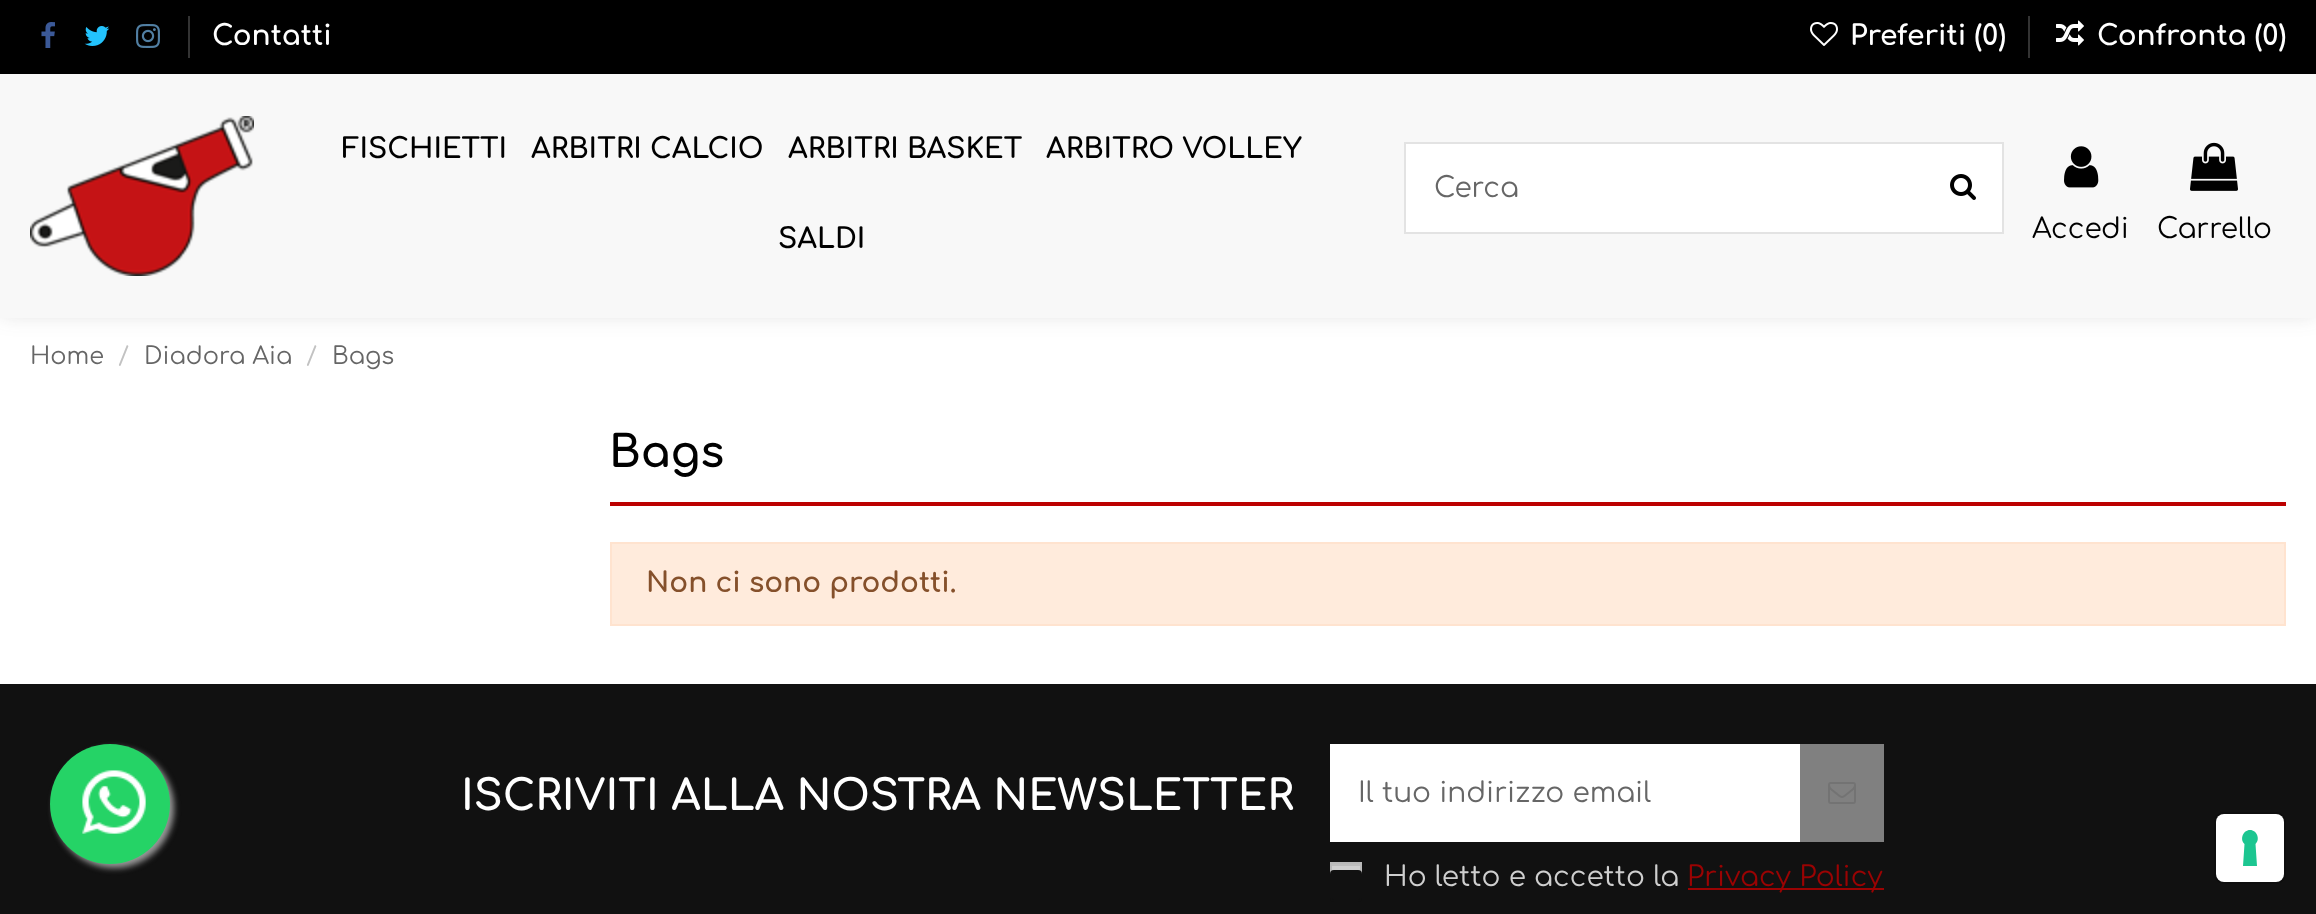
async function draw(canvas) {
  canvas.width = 2316
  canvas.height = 914
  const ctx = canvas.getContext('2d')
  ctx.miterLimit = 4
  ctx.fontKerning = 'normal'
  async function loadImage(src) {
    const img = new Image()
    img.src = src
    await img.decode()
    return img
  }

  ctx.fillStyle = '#fff'
  ctx.fillRect(0, 0, 2316, 914)
  ctx.fillStyle = '#3d39392b'
  ctx.filter = 'blur(11px)'
  ctx.beginPath()
  ctx.rect(0, -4, 2316, 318)
  ctx.fill()
  ctx.filter = 'none'
  ctx.fillStyle = '#f8f8f8'
  ctx.fillRect(0, 74, 2316, 244)
  ctx.fillStyle = '#000'
  ctx.fillRect(0, 0, 2316, 74)
  ctx.drawImage(await loadImage('image0.png'), 41, 22, 14, 26)
  ctx.drawImage(await loadImage('image1.png'), 84, 26, 26, 20)
  ctx.drawImage(await loadImage('image2.png'), 136, 24, 24, 24)
  ctx.fillStyle = '#333'
  ctx.fillRect(188, 16, 2, 42)
  ctx.font = 'bold 28px Comfortaa'
  ctx.fillStyle = '#fff'
  ctx.fillText('Contatti', 212, 45)
  ctx.drawImage(await loadImage('image3.png'), 1810, 22, 28, 24)
  ctx.fillText('Preferiti (0)', 1850, 45)
  ctx.fillStyle = '#333'
  ctx.fillRect(2028, 16, 2, 42)
  ctx.drawImage(await loadImage('image4.png'), 2056, 20, 28, 26)
  ctx.fillStyle = '#fff'
  ctx.fillText('Confronta (0)', 2097, 45)
  ctx.drawImage(await loadImage('image5.png'), 30, 116, 224, 160)
  ctx.fillStyle = '#000'
  ctx.fillText('FISCHIETTI', 342, 158)
  ctx.fillText('ARBITRI CALCIO', 531, 158)
  ctx.fillText('ARBITRI BASKET', 788, 158)
  ctx.fillText('ARBITRO VOLLEY', 1046, 158)
  ctx.fillText('SALDI', 778, 248)
  ctx.fillStyle = '#fff'
  ctx.beginPath()
  ctx.rect(1405, 143, 598, 90)
  ctx.fill()
  ctx.strokeStyle = '#e3e3e3'
  ctx.lineWidth = 2
  ctx.stroke()
  ctx.font = '28px Comfortaa'
  ctx.fillStyle = '#666'
  ctx.fillText('Cerca', 1434, 197)
  ctx.drawImage(await loadImage('image6.png'), 1950, 174, 26, 26)
  ctx.drawImage(await loadImage('image7.png'), 2064, 146, 35, 42)
  ctx.fillStyle = '#000'
  ctx.fillText('Accedi', 2032, 238)
  ctx.drawImage(await loadImage('image8.png'), 2190, 142, 48, 49)
  ctx.fillText('Carrello', 2157, 238)
  ctx.font = '24px Comfortaa'
  ctx.fillStyle = '#666'
  ctx.fillText('Home', 30, 364)
  ctx.fillStyle = '#c2c2c2'
  ctx.fillText('/', 118, 364)
  ctx.fillStyle = '#666'
  ctx.fillText('Diadora Aia', 144, 364)
  ctx.fillStyle = '#c2c2c2'
  ctx.fillText('/', 306, 364)
  ctx.fillStyle = '#666'
  ctx.fillText('Bags', 332, 364)
  ctx.fillStyle = '#bc0000'
  ctx.fillRect(610, 502, 1676, 4)
  ctx.font = 'bold 44px Comfortaa'
  ctx.fillStyle = '#000'
  ctx.fillText('Bags', 609, 467)
  ctx.fillStyle = '#ffebdc'
  ctx.beginPath()
  ctx.rect(611, 543, 1674, 82)
  ctx.fill()
  ctx.strokeStyle = '#ffe3cf'
  ctx.stroke()
  ctx.font = 'bold 28px Comfortaa'
  ctx.fillStyle = '#85502b'
  ctx.fillText('Non ci sono prodotti.', 646, 592)
  ctx.fillStyle = '#111'
  ctx.fillRect(0, 684, 2316, 230)
  ctx.font = 'bold 42px Comfortaa'
  ctx.fillStyle = '#fff'
  ctx.fillText('ISCRIVITI ALLA NOSTRA NEWSLETTER', 461, 810)
  ctx.fillRect(1330, 744, 470, 98)
  ctx.font = '28px Comfortaa'
  ctx.fillStyle = '#666'
  ctx.fillText('Il tuo indirizzo email', 1358, 802)
  ctx.fillStyle = '#808080'
  ctx.fillRect(1800, 744, 84, 98)
  ctx.drawImage(await loadImage('image9.png'), 1828, 782, 28, 22)
  ctx.fillStyle = '#cfcfcf'
  ctx.fillRect(1332, 866, 28, 5)
  ctx.fillStyle = '#bdbdbd'
  ctx.fillRect(1332, 864, 28, 2)
  ctx.strokeStyle = '#b9b9b9'
  ctx.strokeRect(1331, 863, 30, 30)
  ctx.fillStyle = '#cfcfcf'
  ctx.fillText('Ho letto e accetto la', 1384, 886)
  ctx.fillStyle = '#9a0303'
  ctx.fillRect(1688, 888, 196, 2)
  ctx.fillText('Privacy Policy', 1687, 886)
  ctx.fillStyle = '#111'
  ctx.beginPath()
  ctx.roundRect(1331, 871, 30, 30, 3)
  ctx.fill()
  ctx.strokeStyle = '#111'
  ctx.stroke()
  ctx.fillStyle = '#999'
  ctx.filter = 'blur(3px)'
  ctx.beginPath()
  ctx.roundRect(54, 748, 120, 120, 60)
  ctx.fill()
  ctx.filter = 'none'
  ctx.fillStyle = '#25d366'
  ctx.beginPath()
  ctx.arc(110, 804, 60, 0, 2 * Math.PI)
  ctx.fill()
  ctx.drawImage(await loadImage('image10.png'), 82, 770, 64, 64)
  ctx.beginPath()
  ctx.roundRect(2215, 813, 70, 70, 9)
  ctx.strokeStyle = '#0e0e0e'
  ctx.stroke()
  ctx.fillStyle = '#fff'
  ctx.beginPath()
  ctx.roundRect(2216, 814, 68, 68, 8)
  ctx.fill()
  ctx.fillStyle = '#1cc691'
  ctx.beginPath()
  ctx.moveTo(2250, 830)
  ctx.bezierCurveTo(2257, 830, 2260.5, 839.5, 2255.5, 844)
  ctx.lineTo(2257, 866)
  ctx.lineTo(2243, 866)
  ctx.lineTo(2244.5, 844)
  ctx.bezierCurveTo(2239.5, 839.5, 2243, 830, 2250, 830)
  ctx.closePath()
  ctx.fill('evenodd')
}

draw(document.querySelector('canvas'))
